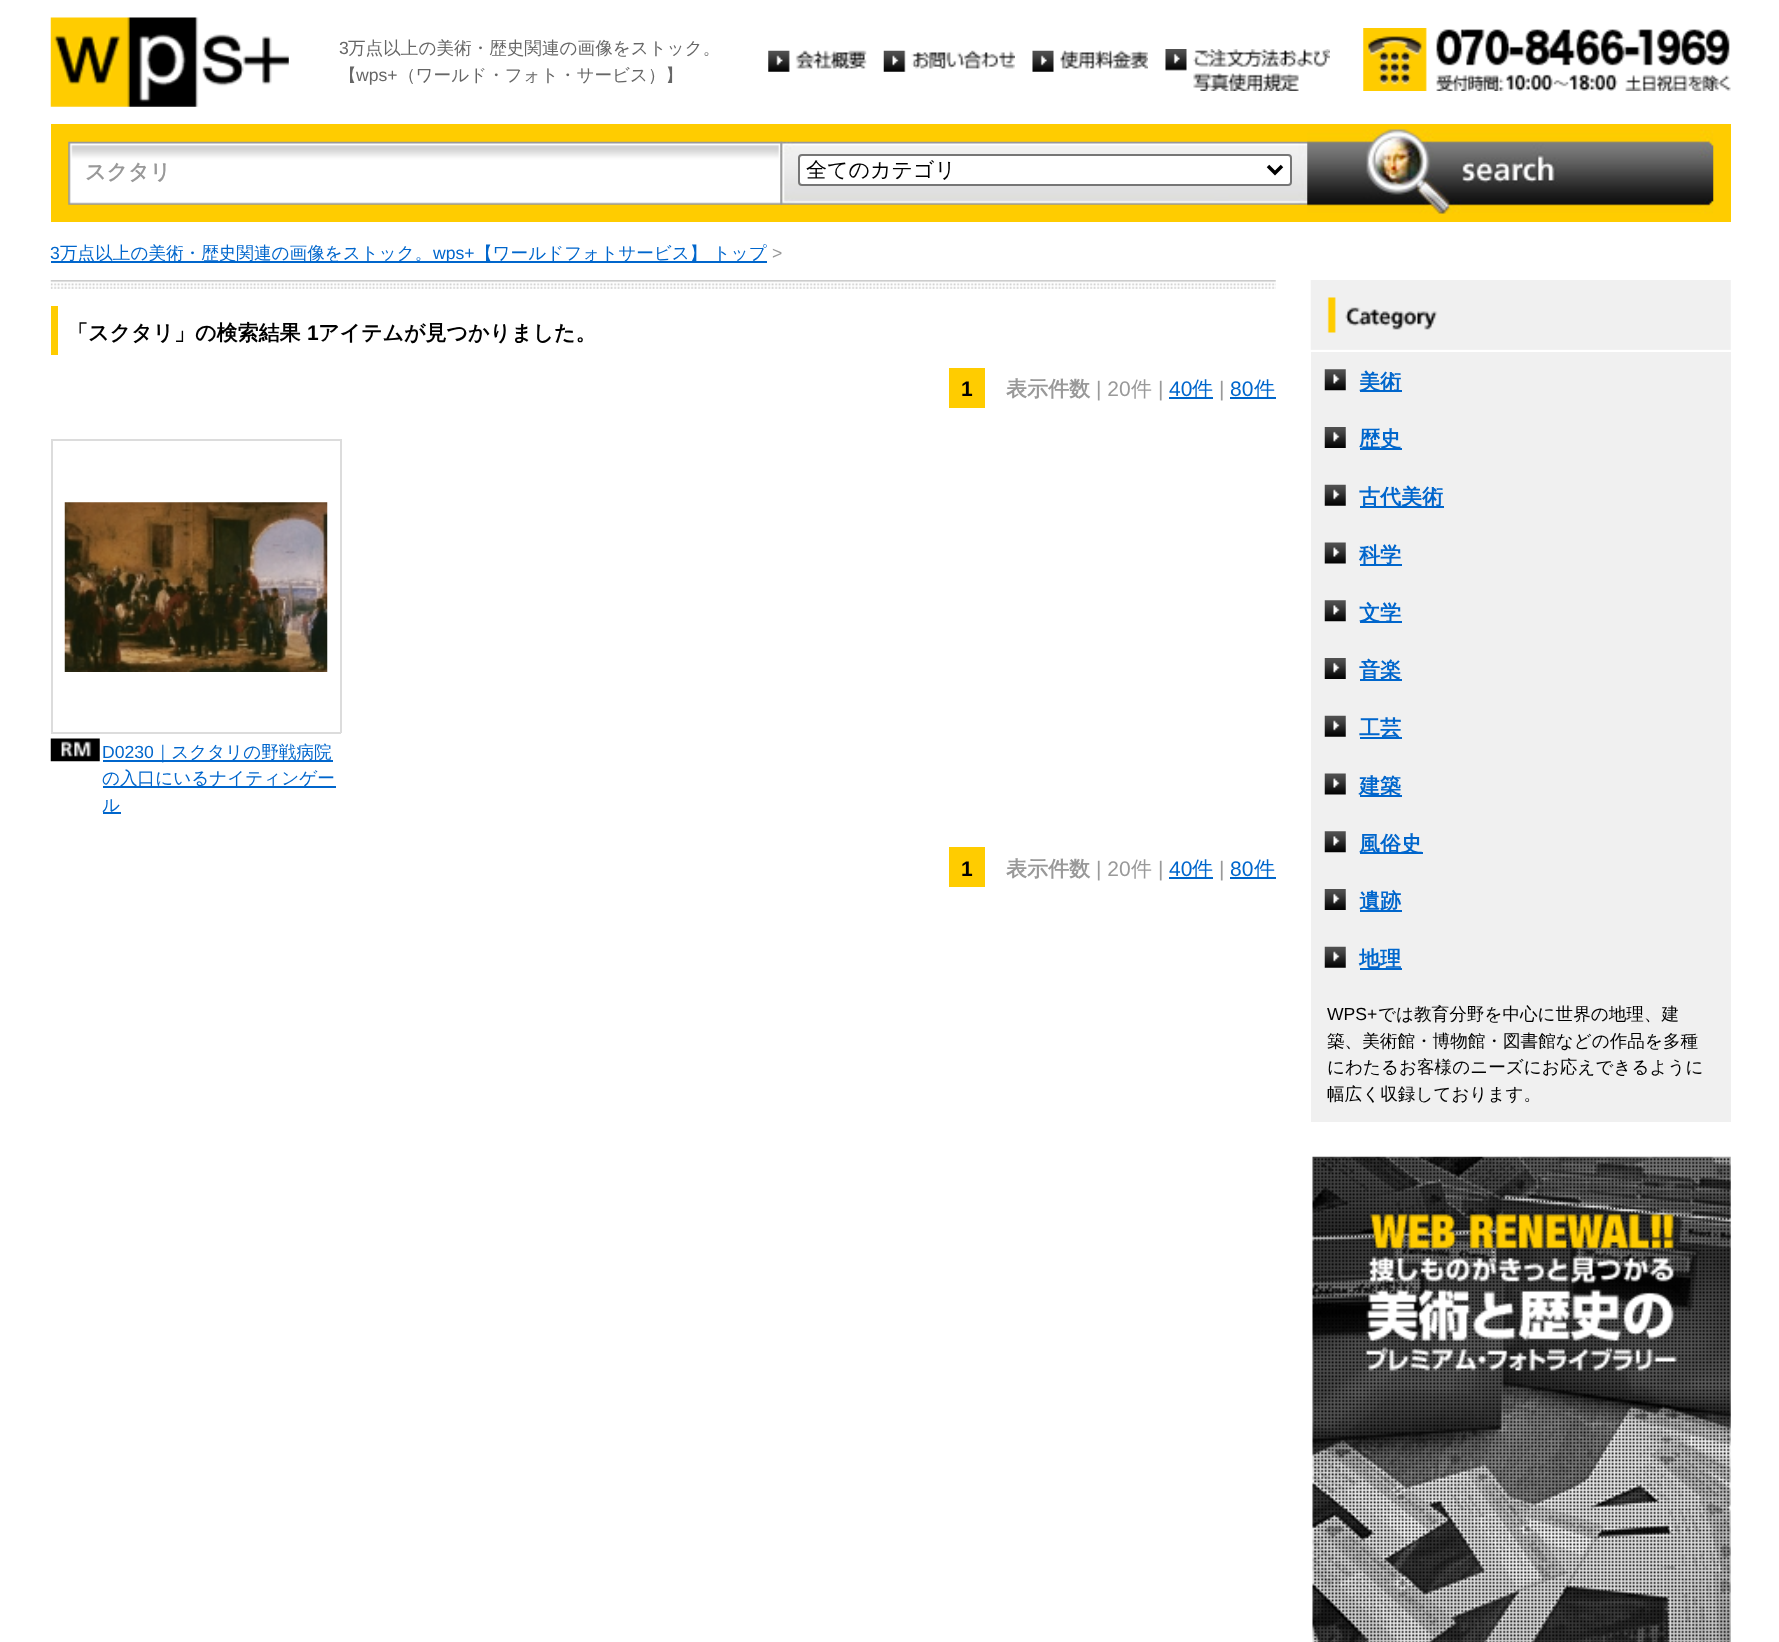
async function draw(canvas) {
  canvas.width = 1779
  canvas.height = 1642
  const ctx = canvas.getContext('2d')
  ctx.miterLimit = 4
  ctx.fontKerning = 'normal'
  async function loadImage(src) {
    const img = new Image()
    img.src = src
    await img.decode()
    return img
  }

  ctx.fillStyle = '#fff'
  ctx.fillRect(0, 0, 1779, 1642)
  ctx.drawImage(await loadImage('image0.png'), 50, 17, 239, 90)
  ctx.font = '17.6px Liberation Sans'
  ctx.fillStyle = '#666'
  ctx.fillText('3', 339, 54)
  ctx.font = '500 17.6px WenQuanYi Zen Hei'
  ctx.fillText('万点以上の美術・歴史関連の画像をストック。', 348, 54)
  ctx.fillText('【', 339, 81)
  ctx.font = '17.6px Liberation Sans'
  ctx.fillText('wps+', 356, 81)
  ctx.font = '500 17.6px WenQuanYi Zen Hei'
  ctx.fillText('（ワールド・フォト・サービス）】', 398, 81)
  ctx.drawImage(await loadImage('image1.png'), 768, 50, 99, 22)
  ctx.drawImage(await loadImage('image2.png'), 883, 50, 132, 22)
  ctx.drawImage(await loadImage('image3.png'), 1032, 50, 116, 22)
  ctx.drawImage(await loadImage('image4.png'), 1165, 49, 165, 42)
  ctx.drawImage(await loadImage('image5.png'), 1363, 28, 368, 63)
  ctx.fillStyle = '#fc0'
  ctx.fillRect(51, 124, 1680, 98)
  ctx.drawImage(await loadImage('image6.png'), 68, 141, 715, 64)
  ctx.font = 'bold 21px WenQuanYi Zen Hei'
  ctx.fillStyle = '#999'
  ctx.fillText('スクタリ', 85, 179)
  ctx.drawImage(await loadImage('image7.png'), 780, 141, 528, 64)
  ctx.fillStyle = '#fff'
  ctx.beginPath()
  ctx.roundRect(799, 155, 492, 30, 3)
  ctx.fill()
  ctx.strokeStyle = '#767676'
  ctx.lineWidth = 2
  ctx.stroke()
  ctx.beginPath()
  ctx.moveTo(1268, 166)
  ctx.lineTo(1275, 173)
  ctx.lineTo(1282, 166)
  ctx.strokeStyle = '#000'
  ctx.lineWidth = 3.5
  ctx.stroke()
  ctx.font = '500 21px WenQuanYi Zen Hei'
  ctx.fillStyle = '#000'
  ctx.fillText('全てのカテゴリ', 806, 177)
  ctx.drawImage(await loadImage('image8.png'), 1307, 129, 407, 85)
  ctx.font = '17.6px Liberation Sans'
  ctx.fillStyle = '#06c'
  ctx.fillText('3', 50, 259)
  ctx.fillRect(51, 261, 716, 2)
  ctx.font = '500 17.6px WenQuanYi Zen Hei'
  ctx.fillText('万点以上の美術・歴史関連の画像をストック。', 60, 259)
  ctx.font = '17.6px Liberation Sans'
  ctx.fillText('wps+', 433, 259)
  ctx.font = '500 17.6px WenQuanYi Zen Hei'
  ctx.fillText('【ワールドフォトサービス】 トップ', 475, 259)
  ctx.font = '17.6px Liberation Sans'
  ctx.fillStyle = '#999'
  ctx.fillText('>', 772, 259)
  ctx.drawImage(await loadImage('image9.png'), 50, 280, 1226, 9)
  ctx.fillStyle = '#fc0'
  ctx.fillRect(51, 306, 7, 49)
  ctx.font = 'bold 21px WenQuanYi Zen Hei'
  ctx.fillStyle = '#000'
  ctx.fillText('「スクタリ」の検索結果', 67, 340)
  ctx.font = 'bold 21px Liberation Sans'
  ctx.fillText('1', 307, 340)
  ctx.font = 'bold 21px WenQuanYi Zen Hei'
  ctx.fillText('アイテムが見つかりました。', 318, 340)
  ctx.fillStyle = '#fc0'
  ctx.fillRect(949, 368, 36, 40)
  ctx.font = 'bold 21px Liberation Sans'
  ctx.fillStyle = '#000'
  ctx.fillText('1', 961, 396)
  ctx.font = 'bold 21px WenQuanYi Zen Hei'
  ctx.fillStyle = '#999'
  ctx.fillText('表示件数', 1006, 396)
  ctx.font = '21px Liberation Sans'
  ctx.fillText('| 20', 1096, 396)
  ctx.font = '500 21px WenQuanYi Zen Hei'
  ctx.fillText('件', 1131, 396)
  ctx.font = '21px Liberation Sans'
  ctx.fillText('|', 1158, 396)
  ctx.fillStyle = '#06c'
  ctx.fillText('40', 1169, 396)
  ctx.fillRect(1169, 397, 44, 2)
  ctx.font = '500 21px WenQuanYi Zen Hei'
  ctx.fillText('件', 1192, 396)
  ctx.font = '21px Liberation Sans'
  ctx.fillStyle = '#999'
  ctx.fillText('|', 1219, 396)
  ctx.fillStyle = '#06c'
  ctx.fillText('80', 1230, 396)
  ctx.fillRect(1230, 397, 46, 2)
  ctx.font = '500 21px WenQuanYi Zen Hei'
  ctx.fillText('件', 1254, 396)
  ctx.fillStyle = '#dcdcdc'
  ctx.fillRect(51, 439, 290, 2)
  ctx.fillRect(340, 439, 2, 294)
  ctx.fillRect(51, 732, 290, 2)
  ctx.fillRect(51, 439, 2, 294)
  ctx.drawImage(await loadImage('image10.png'), 64, 502, 264, 170)
  ctx.drawImage(await loadImage('image11.png'), 50, 738, 50, 24)
  ctx.font = '17.6px Liberation Sans'
  ctx.fillStyle = '#06c'
  ctx.fillText('D0230', 102, 758)
  ctx.fillRect(103, 760, 230, 2)
  ctx.font = '500 17.6px WenQuanYi Zen Hei'
  ctx.fillText('｜スクタリの野戦病院', 154, 758)
  ctx.fillRect(103, 786, 233, 2)
  ctx.fillText('の入口にいるナイティンゲー', 102, 784)
  ctx.fillRect(103, 812, 18, 2)
  ctx.fillText('ル', 102, 811)
  ctx.fillStyle = '#fc0'
  ctx.fillRect(949, 847, 36, 40)
  ctx.font = 'bold 21px Liberation Sans'
  ctx.fillStyle = '#000'
  ctx.fillText('1', 961, 876)
  ctx.font = 'bold 21px WenQuanYi Zen Hei'
  ctx.fillStyle = '#999'
  ctx.fillText('表示件数', 1006, 876)
  ctx.font = '21px Liberation Sans'
  ctx.fillText('| 20', 1096, 876)
  ctx.font = '500 21px WenQuanYi Zen Hei'
  ctx.fillText('件', 1131, 876)
  ctx.font = '21px Liberation Sans'
  ctx.fillText('|', 1158, 876)
  ctx.fillStyle = '#06c'
  ctx.fillText('40', 1169, 876)
  ctx.fillRect(1169, 877, 44, 2)
  ctx.font = '500 21px WenQuanYi Zen Hei'
  ctx.fillText('件', 1192, 876)
  ctx.font = '21px Liberation Sans'
  ctx.fillStyle = '#999'
  ctx.fillText('|', 1219, 876)
  ctx.fillStyle = '#06c'
  ctx.fillText('80', 1230, 876)
  ctx.fillRect(1230, 877, 46, 2)
  ctx.font = '500 21px WenQuanYi Zen Hei'
  ctx.fillText('件', 1254, 876)
  ctx.drawImage(await loadImage('image12.png'), 1310, 280, 421, 70)
  ctx.fillStyle = '#f0f0f0'
  ctx.fillRect(1311, 352, 420, 770)
  ctx.drawImage(await loadImage('image13.png'), 1324, 369, 22, 22)
  ctx.fillStyle = '#06c'
  ctx.fillRect(1360, 390, 42, 2)
  ctx.font = 'bold 21px WenQuanYi Zen Hei'
  ctx.fillText('美術', 1359, 389)
  ctx.drawImage(await loadImage('image14.png'), 1324, 427, 22, 21)
  ctx.fillRect(1360, 448, 42, 2)
  ctx.fillText('歴史', 1359, 446)
  ctx.drawImage(await loadImage('image15.png'), 1324, 484, 22, 22)
  ctx.fillRect(1360, 506, 84, 2)
  ctx.fillText('古代美術', 1359, 504)
  ctx.drawImage(await loadImage('image16.png'), 1324, 542, 22, 22)
  ctx.fillRect(1360, 564, 42, 2)
  ctx.fillText('科学', 1359, 562)
  ctx.drawImage(await loadImage('image13.png'), 1324, 600, 22, 22)
  ctx.fillRect(1360, 621, 42, 2)
  ctx.fillText('文学', 1359, 620)
  ctx.drawImage(await loadImage('image14.png'), 1324, 658, 22, 21)
  ctx.fillRect(1360, 679, 42, 2)
  ctx.fillText('音楽', 1359, 677)
  ctx.drawImage(await loadImage('image15.png'), 1324, 715, 22, 22)
  ctx.fillRect(1360, 737, 42, 2)
  ctx.fillText('工芸', 1359, 735)
  ctx.drawImage(await loadImage('image16.png'), 1324, 773, 22, 22)
  ctx.fillRect(1360, 795, 42, 2)
  ctx.fillText('建築', 1359, 793)
  ctx.drawImage(await loadImage('image13.png'), 1324, 831, 22, 22)
  ctx.fillRect(1360, 852, 63, 2)
  ctx.fillText('風俗史', 1359, 851)
  ctx.drawImage(await loadImage('image14.png'), 1324, 889, 22, 21)
  ctx.fillRect(1360, 910, 42, 2)
  ctx.fillText('遺跡', 1359, 908)
  ctx.drawImage(await loadImage('image15.png'), 1324, 946, 22, 22)
  ctx.fillRect(1360, 968, 42, 2)
  ctx.fillText('地理', 1359, 966)
  ctx.font = '17.6px Liberation Sans'
  ctx.fillStyle = '#000'
  ctx.fillText('WPS+', 1327, 1020)
  ctx.font = '500 17.6px WenQuanYi Zen Hei'
  ctx.fillText('では教育分野を中心に世界の地理、建', 1378, 1020)
  ctx.fillText('築、美術館・博物館・図書館などの作品を多種', 1327, 1047)
  ctx.fillText('にわたるお客様のニーズにお応えできるように', 1327, 1073)
  ctx.fillText('幅広く収録しております。', 1327, 1100)
  ctx.drawImage(await loadImage('image17.png'), 1312, 1156, 419, 486)
}

draw(document.querySelector('canvas'))
